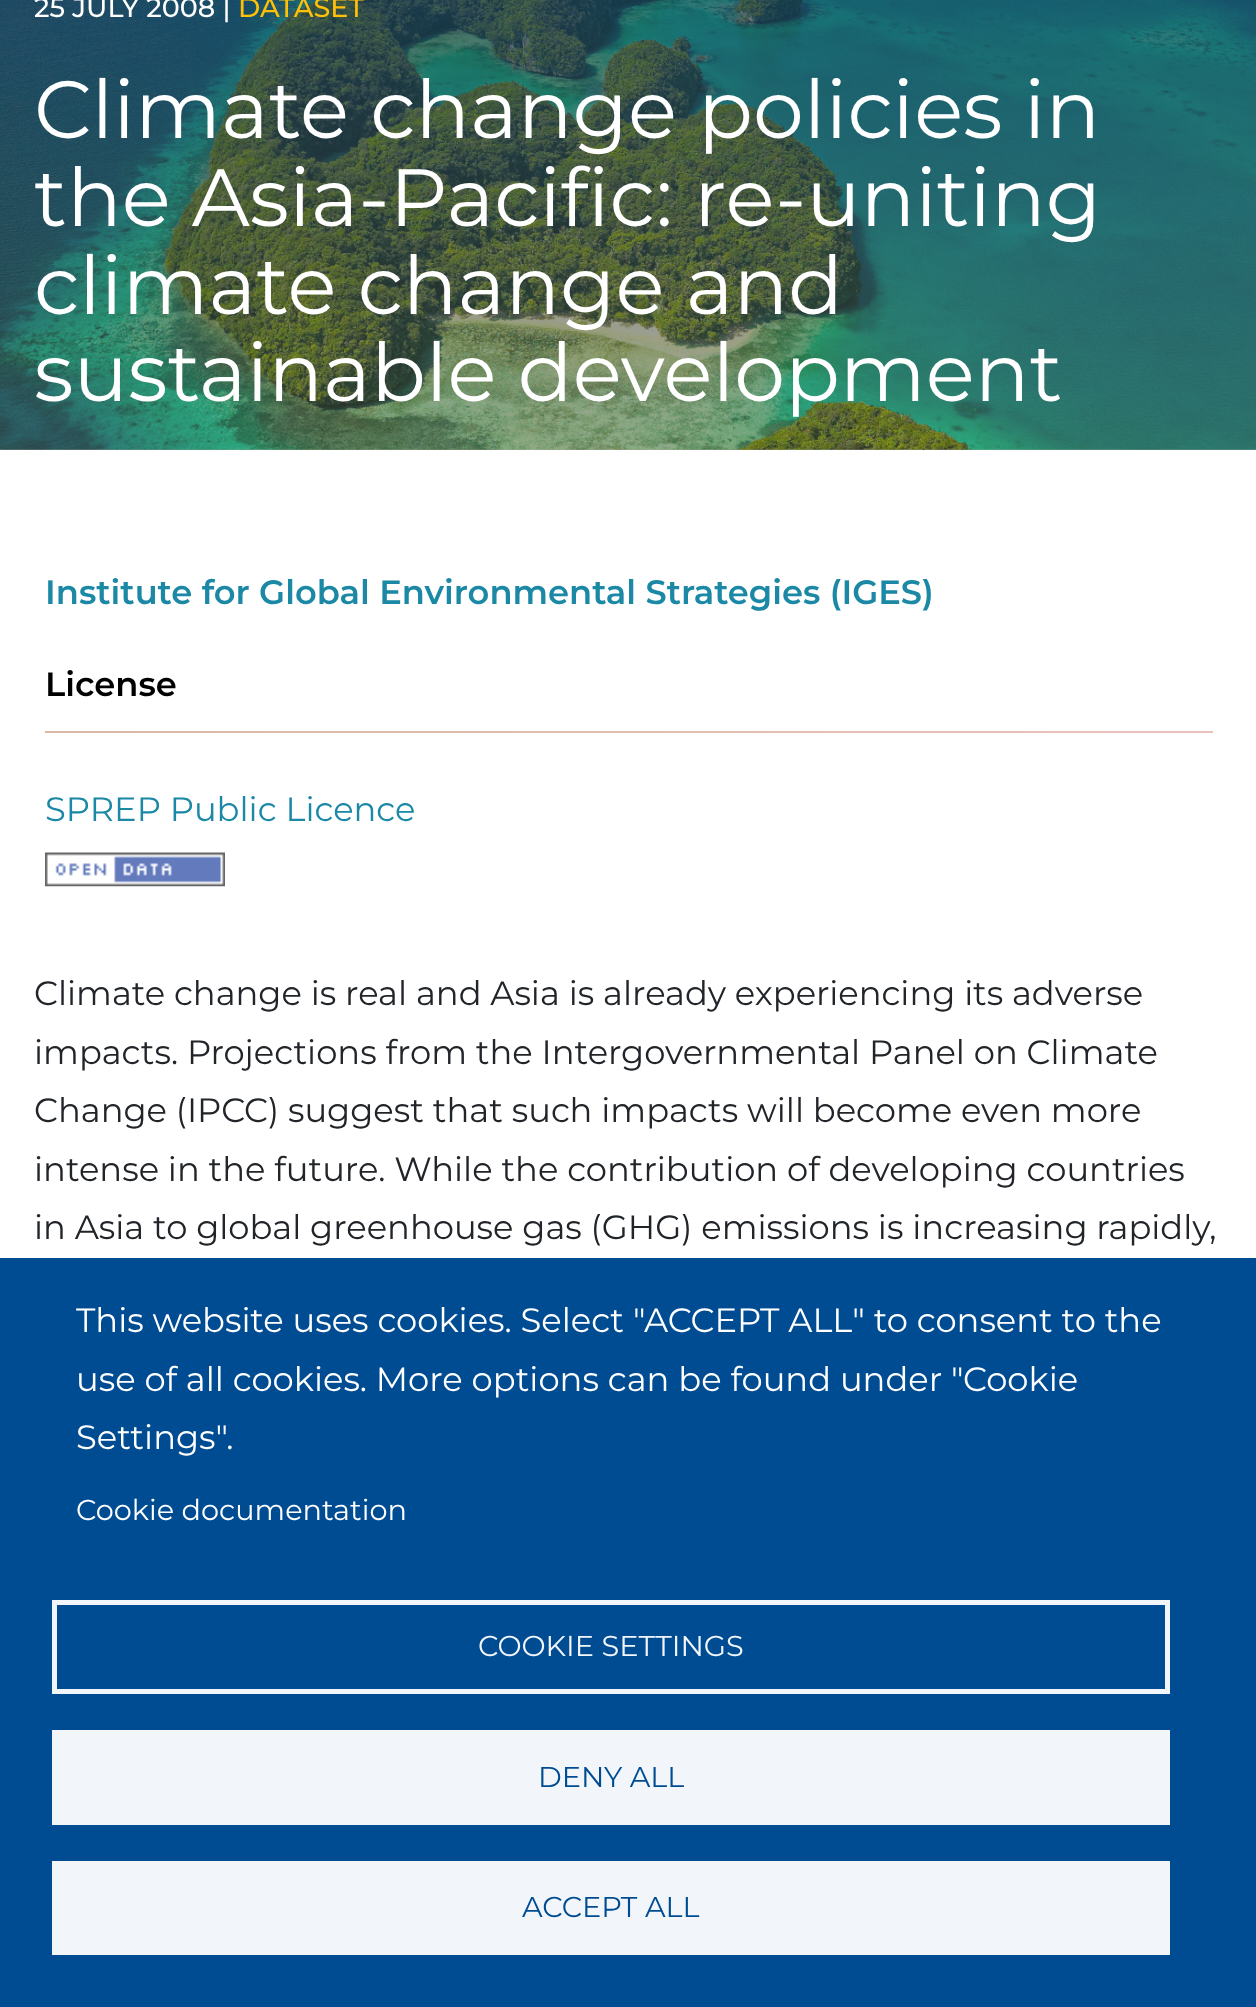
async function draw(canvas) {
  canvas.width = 1256
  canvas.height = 2007
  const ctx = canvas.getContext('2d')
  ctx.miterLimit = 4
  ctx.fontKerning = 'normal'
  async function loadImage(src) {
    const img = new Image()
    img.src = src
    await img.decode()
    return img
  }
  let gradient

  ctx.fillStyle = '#fff'
  ctx.fillRect(0, 0, 1256, 2007)
  ctx.drawImage(await loadImage('image0.png'), 0, 0, 1256, 450)
  gradient = ctx.createLinearGradient(629, -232, 629, 450)
  gradient.addColorStop(0, '#033059cc')
  gradient.addColorStop(1, '#57573580')
  ctx.fillStyle = gradient
  ctx.fillRect(0, 0, 1256, 450)
  ctx.font = '500 27px Montserrat'
  ctx.fillStyle = '#fff'
  ctx.fillText('25 JULY 2008 |', 34, 17)
  ctx.fillStyle = '#ffc107'
  ctx.fillText('DATASET', 238, 17)
  ctx.font = '81px Montserrat'
  ctx.fillStyle = '#fff'
  ctx.fillText('Climate change policies in', 34, 138)
  ctx.fillText('the Asia-Pacific: re-uniting', 34, 226)
  ctx.fillText('climate change and', 34, 314)
  ctx.fillText('sustainable development', 34, 401)
  ctx.font = '600 33.75px Montserrat'
  ctx.fillStyle = '#1b88a5'
  ctx.fillText('Institute for Global Environmental Strategies (IGES)', 45, 604)
  ctx.fillStyle = '#000'
  ctx.fillText('License', 45, 696)
  gradient = ctx.createLinearGradient(45, 732, 1213, 732)
  gradient.addColorStop(0, '#dbb8a3')
  gradient.addColorStop(1, '#ebc1bd')
  ctx.fillStyle = gradient
  ctx.fillRect(45, 731, 1168, 2)
  ctx.font = '33.75px Montserrat'
  ctx.fillStyle = '#1b88a5'
  ctx.fillText('SPREP Public Licence', 45, 821)
  ctx.drawImage(await loadImage('image1.png'), 45, 852, 180, 35)
  ctx.fillStyle = '#212529'
  ctx.fillText('Climate change is real and Asia is already experiencing its adverse', 34, 1005)
  ctx.fillText('impacts. Projections from the Intergovernmental Panel on Climate', 34, 1064)
  ctx.fillText('Change (IPCC) suggest that such impacts will become even more', 34, 1122)
  ctx.fillText('intense in the future. While the contribution of developing countries', 34, 1181)
  ctx.fillText('in Asia to global greenhouse gas (GHG) emissions is increasing rapidly,', 34, 1239)
  ctx.fillStyle = '#004c93'
  ctx.fillRect(0, 1258, 1256, 749)
  ctx.fillStyle = '#fff'
  ctx.fillText('This website uses cookies. Select "ACCEPT ALL" to consent to the', 76, 1332)
  ctx.fillText('use of all cookies. More options can be found under "Cookie', 76, 1391)
  ctx.fillText('Settings".', 76, 1449)
  ctx.font = '28.75px Montserrat'
  ctx.fillText('Cookie documentation', 76, 1520)
  ctx.strokeStyle = '#f2f6fa'
  ctx.lineWidth = 5
  ctx.strokeRect(54.5, 1602.5, 1113, 89)
  ctx.fillStyle = '#f2f6fa'
  ctx.fillText('COOKIE SETTINGS', 478, 1656)
  ctx.fillRect(52, 1730, 1118, 95)
  ctx.fillStyle = '#004c93'
  ctx.fillText('DENY ALL', 538, 1787)
  ctx.fillStyle = '#f2f6fa'
  ctx.fillRect(52, 1861, 1118, 94)
  ctx.fillStyle = '#004c93'
  ctx.fillText('ACCEPT ALL', 522, 1917)
}

draw(document.querySelector('canvas'))
